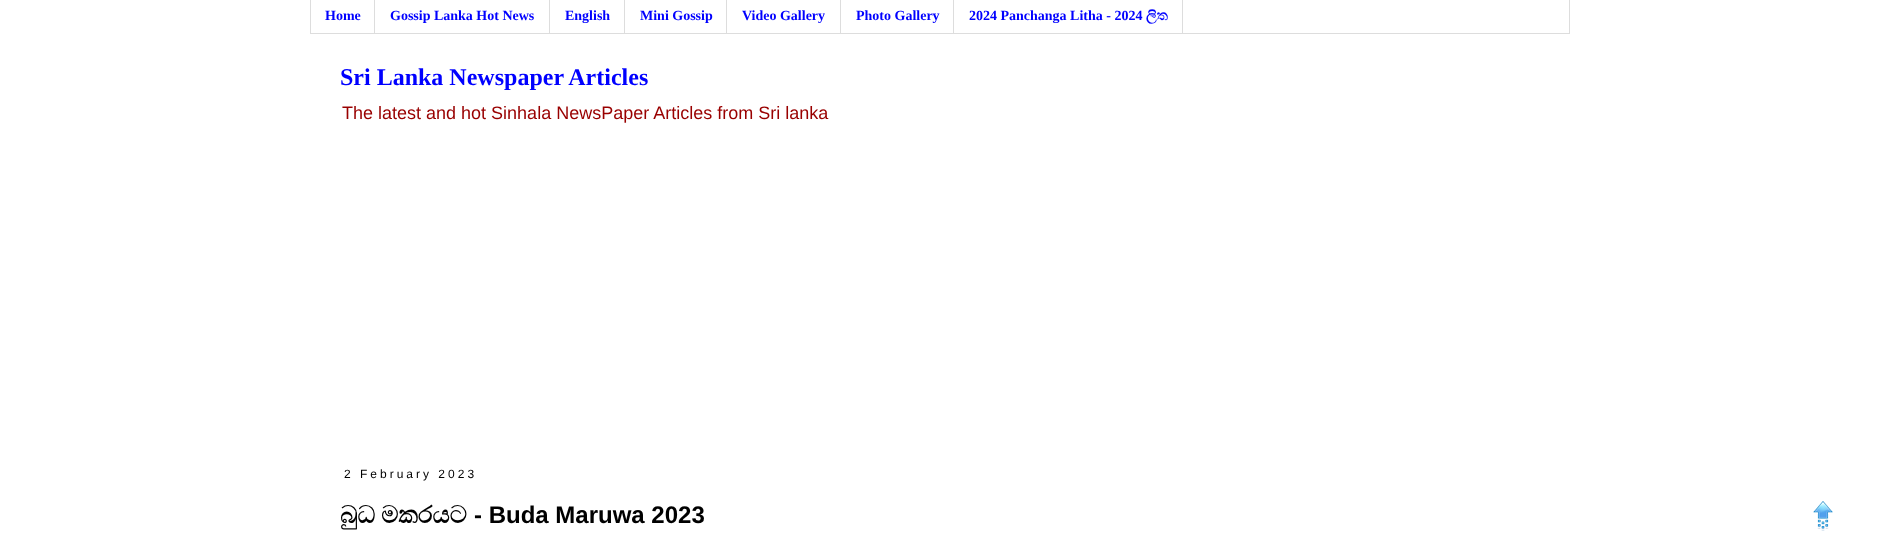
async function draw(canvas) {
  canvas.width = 1879
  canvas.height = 541
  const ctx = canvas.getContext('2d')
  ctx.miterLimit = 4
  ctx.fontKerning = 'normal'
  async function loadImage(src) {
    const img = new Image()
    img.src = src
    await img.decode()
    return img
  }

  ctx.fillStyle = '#fff'
  ctx.fillRect(0, 0, 1879, 541)
  ctx.strokeStyle = '#ddd'
  ctx.strokeRect(310.5, -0.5, 1259, 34)
  ctx.fillStyle = '#ddd'
  ctx.fillRect(374, 0, 1, 33)
  ctx.font = 'bold 14px Liberation Serif'
  ctx.fillStyle = '#00f'
  ctx.fillText('Home', 325, 20)
  ctx.fillStyle = '#ddd'
  ctx.fillRect(549, 0, 1, 33)
  ctx.fillStyle = '#00f'
  ctx.fillText('Gossip Lanka Hot News', 390, 20)
  ctx.fillStyle = '#ddd'
  ctx.fillRect(624, 0, 1, 33)
  ctx.fillStyle = '#00f'
  ctx.fillText('English', 565, 20)
  ctx.fillStyle = '#ddd'
  ctx.fillRect(726, 0, 1, 33)
  ctx.fillStyle = '#00f'
  ctx.fillText('Mini Gossip', 640, 20)
  ctx.fillStyle = '#ddd'
  ctx.fillRect(840, 0, 1, 33)
  ctx.fillStyle = '#00f'
  ctx.fillText('Video Gallery', 742, 20)
  ctx.fillStyle = '#ddd'
  ctx.fillRect(953, 0, 1, 33)
  ctx.fillStyle = '#00f'
  ctx.fillText('Photo Gallery', 856, 20)
  ctx.fillStyle = '#ddd'
  ctx.fillRect(1182, 0, 1, 33)
  ctx.fillStyle = '#00f'
  ctx.fillText('2024 Panchanga Litha - 2024', 969, 20)
  ctx.font = 'bold 14px FreeSerif'
  ctx.fillText('ලිත', 1146, 20)
  ctx.font = 'bold 24px Liberation Serif'
  ctx.fillText('Sri Lanka Newspaper Articles', 340, 85)
  ctx.font = '18px Liberation Sans'
  ctx.fillStyle = '#900'
  ctx.fillText('The latest and hot Sinhala NewsPaper Articles from Sri lanka', 342, 119)
  ctx.letterSpacing = '3px'
  ctx.font = '12px Liberation Sans'
  ctx.fillStyle = '#000'
  ctx.fillText('2 February 2023', 344, 478)
  ctx.letterSpacing = '0px'
  ctx.font = 'bold 24px "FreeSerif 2"'
  ctx.fillText('බුධ', 340, 523)
  ctx.fillText('මකරයට', 381, 523)
  ctx.font = 'bold 24px Liberation Sans'
  ctx.fillText('- Buda Maruwa 2023', 474, 523)
  ctx.drawImage(await loadImage('image0.png'), 1813, 501, 20, 30)
}

draw(document.querySelector('canvas'))
